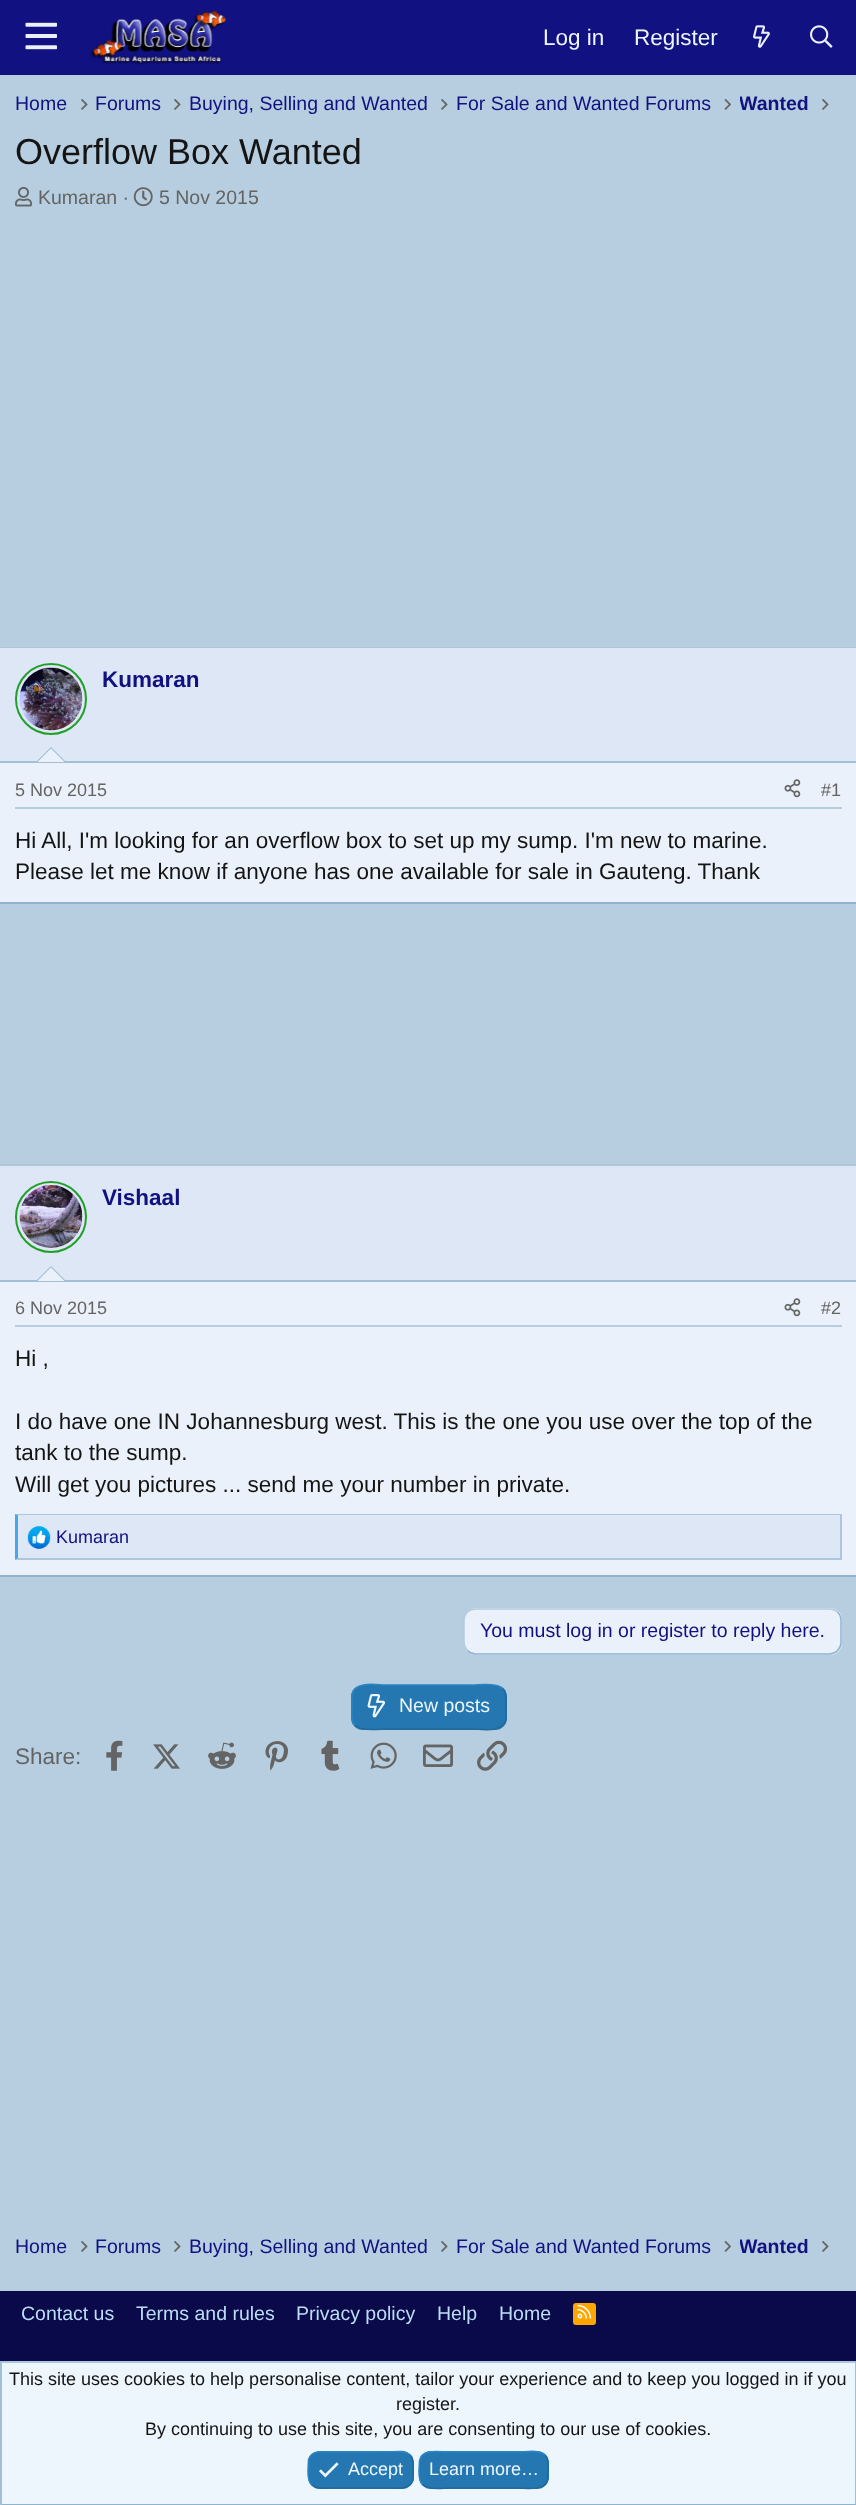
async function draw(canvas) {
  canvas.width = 856
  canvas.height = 2505
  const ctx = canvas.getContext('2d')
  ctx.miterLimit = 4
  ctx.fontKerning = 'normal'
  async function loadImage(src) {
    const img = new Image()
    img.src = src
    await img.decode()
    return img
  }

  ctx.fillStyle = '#b6cedf'
  ctx.fillRect(0, 0, 856, 2505)
  ctx.fillStyle = '#111181'
  ctx.fillRect(0, 0, 856, 75)
  ctx.drawImage(await loadImage('image0.png'), 25, 22, 32, 28)
  ctx.drawImage(await loadImage('image1.png'), 90, 10, 137, 55)
  ctx.font = '22.5px Liberation Sans'
  ctx.fillStyle = '#edf6fd'
  ctx.fillText('Log in', 543, 45)
  ctx.fillText('Register', 634, 45)
  ctx.drawImage(await loadImage('image2.png'), 753, 25, 17, 23)
  ctx.drawImage(await loadImage('image3.png'), 810, 25, 23, 23)
  ctx.font = '19.5px Liberation Sans'
  ctx.fillStyle = '#111181'
  ctx.fillText('Home', 15, 110)
  ctx.drawImage(await loadImage('image4.png'), 81, 99, 7, 11)
  ctx.fillText('Forums', 95, 110)
  ctx.drawImage(await loadImage('image4.png'), 174, 99, 7, 11)
  ctx.fillText('Buying, Selling and Wanted', 189, 110)
  ctx.drawImage(await loadImage('image4.png'), 441, 99, 7, 11)
  ctx.fillText('For Sale and Wanted Forums', 456, 110)
  ctx.drawImage(await loadImage('image5.png'), 724, 99, 7, 11)
  ctx.save()
  ctx.beginPath()
  ctx.rect(740, 90, 69, 29)
  ctx.clip()
  ctx.font = 'bold 19.5px Liberation Sans'
  ctx.fillText('Wanted', 739, 110)
  ctx.restore()
  ctx.drawImage(await loadImage('image4.png'), 822, 99, 7, 11)
  ctx.font = '36px Liberation Sans'
  ctx.fillStyle = '#141414'
  ctx.fillText('Overflow Box Wanted', 15, 164)
  ctx.drawImage(await loadImage('image6.png'), 15, 186, 18, 21)
  ctx.font = '19.5px Liberation Sans'
  ctx.fillStyle = '#646464'
  ctx.fillText('Kumaran ·', 38, 204)
  ctx.drawImage(await loadImage('image7.png'), 133, 187, 20, 20)
  ctx.fillText('5 Nov 2015', 159, 204)
  ctx.fillStyle = '#ebf1fa'
  ctx.fillRect(0, 763, 856, 139)
  ctx.fillStyle = '#acc7db'
  ctx.fillRect(0, 647, 856, 1)
  ctx.fillStyle = '#8fb4ce'
  ctx.fillRect(0, 902, 856, 2)
  ctx.fillStyle = '#dde7f6'
  ctx.fillRect(0, 648, 856, 113)
  ctx.fillStyle = '#a1c0d6'
  ctx.fillRect(0, 761, 856, 2)
  ctx.beginPath()
  ctx.arc(51, 699, 35, 0, 2 * Math.PI)
  ctx.strokeStyle = '#21a029'
  ctx.lineWidth = 2
  ctx.stroke()
  ctx.fillStyle = '#ebf1fa'
  ctx.beginPath()
  ctx.arc(51.5, 699.5, 31.5, 0, 2 * Math.PI)
  ctx.fill()
  ctx.drawImage(await loadImage('image8.png'), 19, 667, 64, 64)
  ctx.font = 'bold 22.5px Liberation Sans'
  ctx.fillStyle = '#111181'
  ctx.fillText('Kumaran', 102, 687)
  ctx.fillStyle = '#a1c0d6'
  ctx.beginPath()
  ctx.moveTo(66, 762)
  ctx.lineTo(36, 762)
  ctx.lineTo(51, 747)
  ctx.closePath()
  ctx.fill()
  ctx.fillStyle = '#ebf1fa'
  ctx.beginPath()
  ctx.moveTo(64.5, 762)
  ctx.lineTo(37.5, 762)
  ctx.lineTo(51, 748.5)
  ctx.closePath()
  ctx.fill()
  ctx.fillStyle = '#b6cedf'
  ctx.fillRect(15, 807, 827, 2)
  ctx.font = '18px Liberation Sans'
  ctx.fillStyle = '#646464'
  ctx.fillText('5 Nov 2015', 15, 796)
  ctx.drawImage(await loadImage('image9.png'), 784, 779, 17, 19)
  ctx.fillText('#1', 821, 796)
  ctx.font = '22.5px Liberation Sans'
  ctx.fillStyle = '#141414'
  ctx.fillText('Hi All, I\'m looking for an overflow box to set up my sump. I\'m new to marine.', 15, 848)
  ctx.fillText('Please let me know if anyone has one available for sale in Gauteng. Thank', 15, 879)
  ctx.fillStyle = '#ebf1fa'
  ctx.fillRect(0, 1282, 856, 293)
  ctx.fillStyle = '#acc7db'
  ctx.fillRect(0, 1164, 856, 2)
  ctx.fillStyle = '#8fb4ce'
  ctx.fillRect(0, 1575, 856, 2)
  ctx.fillStyle = '#dde7f6'
  ctx.fillRect(0, 1166, 856, 114)
  ctx.fillStyle = '#a1c0d6'
  ctx.fillRect(0, 1280, 856, 2)
  ctx.beginPath()
  ctx.arc(51, 1217, 35, 0, 2 * Math.PI)
  ctx.stroke()
  ctx.fillStyle = '#ebf1fa'
  ctx.beginPath()
  ctx.arc(51.5, 1216.5, 31.5, 0, 2 * Math.PI)
  ctx.fill()
  ctx.drawImage(await loadImage('image10.png'), 19, 1185, 64, 63)
  ctx.font = 'bold 22.5px Liberation Sans'
  ctx.fillStyle = '#111181'
  ctx.fillText('Vishaal', 102, 1205)
  ctx.fillStyle = '#a1c0d6'
  ctx.beginPath()
  ctx.moveTo(66, 1281)
  ctx.lineTo(36, 1281)
  ctx.lineTo(51, 1266)
  ctx.closePath()
  ctx.fill()
  ctx.fillStyle = '#ebf1fa'
  ctx.beginPath()
  ctx.moveTo(64.5, 1281)
  ctx.lineTo(37.5, 1281)
  ctx.lineTo(51, 1267.5)
  ctx.closePath()
  ctx.fill()
  ctx.fillStyle = '#b6cedf'
  ctx.fillRect(15, 1325, 827, 2)
  ctx.font = '18px Liberation Sans'
  ctx.fillStyle = '#646464'
  ctx.fillText('6 Nov 2015', 15, 1314)
  ctx.drawImage(await loadImage('image9.png'), 784, 1298, 17, 19)
  ctx.fillText('#2', 821, 1314)
  ctx.font = '22.5px Liberation Sans'
  ctx.fillStyle = '#141414'
  ctx.fillText('Hi ,', 15, 1366)
  ctx.fillText('I do have one IN Johannesburg west. This is the one you use over the top of the', 15, 1429)
  ctx.fillText('tank to the sump.', 15, 1460)
  ctx.fillText('Will get you pictures ... send me your number in private.', 15, 1492)
  ctx.fillStyle = '#dde7f6'
  ctx.fillRect(18, 1515, 822, 43)
  ctx.fillStyle = '#acc7db'
  ctx.beginPath()
  ctx.moveTo(15, 1514)
  ctx.lineTo(842, 1514)
  ctx.lineTo(840, 1515)
  ctx.lineTo(18, 1515)
  ctx.closePath()
  ctx.fill()
  ctx.fillRect(840, 1514, 2, 46)
  ctx.beginPath()
  ctx.moveTo(842, 1560)
  ctx.lineTo(15, 1560)
  ctx.lineTo(18, 1558)
  ctx.lineTo(840, 1558)
  ctx.closePath()
  ctx.fill()
  ctx.fillStyle = '#47a7eb'
  ctx.beginPath()
  ctx.moveTo(15, 1560)
  ctx.lineTo(15, 1514)
  ctx.lineTo(18, 1515)
  ctx.lineTo(18, 1558)
  ctx.closePath()
  ctx.fill()
  ctx.drawImage(await loadImage('image11.png'), 27, 1526, 24, 23)
  ctx.font = '18px Liberation Sans'
  ctx.fillStyle = '#111181'
  ctx.fillText('Kumaran', 56, 1543)
  ctx.fillStyle = '#ebf1fa'
  ctx.beginPath()
  ctx.roundRect(464, 1608, 378, 47, 12)
  ctx.fill()
  ctx.beginPath()
  ctx.moveTo(837.5, 1612)
  ctx.bezierCurveTo(839.5, 1614, 841, 1617, 841, 1620)
  ctx.lineTo(841, 1642.5)
  ctx.bezierCurveTo(841, 1645.5, 839.5, 1648.5, 837.5, 1650.5)
  ctx.bezierCurveTo(835.5, 1652.5, 832.5, 1654, 829.5, 1654)
  ctx.lineTo(475.5, 1654)
  ctx.bezierCurveTo(472.5, 1654, 469.5, 1652.5, 467.5, 1650.5)
  ctx.strokeStyle = '#8fb4ce'
  ctx.lineWidth = 1.5
  ctx.stroke()
  ctx.beginPath()
  ctx.moveTo(467.5, 1650.5)
  ctx.bezierCurveTo(465.5, 1648.5, 464, 1645.5, 464, 1642.5)
  ctx.lineTo(464, 1620)
  ctx.bezierCurveTo(464, 1617, 465.5, 1614, 467.5, 1612)
  ctx.bezierCurveTo(469.5, 1610, 472.5, 1609, 475.5, 1609)
  ctx.lineTo(829.5, 1609)
  ctx.bezierCurveTo(832.5, 1609, 835.5, 1610, 837.5, 1612)
  ctx.strokeStyle = '#b3ccde'
  ctx.stroke()
  ctx.font = '19.5px Liberation Sans'
  ctx.fillStyle = '#111181'
  ctx.fillText('You must log in or register to reply here.', 480, 1637)
  ctx.fillStyle = '#2577b1'
  ctx.beginPath()
  ctx.roundRect(351, 1685, 156, 45, 12)
  ctx.fill()
  ctx.beginPath()
  ctx.moveTo(503, 1688.5)
  ctx.bezierCurveTo(507.5, 1693.5, 506, 1701, 506, 1707)
  ctx.lineTo(506, 1719.5)
  ctx.bezierCurveTo(503, 1733.5, 481, 1729, 473, 1729)
  ctx.lineTo(385, 1729)
  ctx.bezierCurveTo(380, 1729, 362, 1732, 355, 1725.5)
  ctx.strokeStyle = '#21699c'
  ctx.stroke()
  ctx.beginPath()
  ctx.moveTo(355, 1725.5)
  ctx.bezierCurveTo(350.5, 1720.5, 352, 1713, 352, 1707)
  ctx.lineTo(352, 1694.5)
  ctx.bezierCurveTo(355, 1680.5, 377, 1685, 385, 1685)
  ctx.lineTo(473, 1685)
  ctx.bezierCurveTo(478, 1685, 496, 1682, 503, 1688.5)
  ctx.strokeStyle = '#2985c6'
  ctx.stroke()
  ctx.drawImage(await loadImage('image12.png'), 367, 1694, 19, 24)
  ctx.fillStyle = '#edf6fd'
  ctx.fillText('New posts', 399, 1712)
  ctx.font = '22.5px Liberation Sans'
  ctx.fillStyle = '#646464'
  ctx.fillText('Share:', 15, 1764)
  ctx.drawImage(await loadImage('image13.png'), 106, 1740, 17, 31)
  ctx.drawImage(await loadImage('image14.png'), 153, 1744, 27, 25)
  ctx.drawImage(await loadImage('image15.png'), 208, 1742, 28, 27)
  ctx.drawImage(await loadImage('image16.png'), 265, 1741, 23, 30)
  ctx.drawImage(await loadImage('image17.png'), 321, 1740, 19, 31)
  ctx.drawImage(await loadImage('image18.png'), 370, 1742, 27, 27)
  ctx.drawImage(await loadImage('image19.png'), 423, 1744, 30, 23)
  ctx.drawImage(await loadImage('image20.png'), 477, 1740, 30, 31)
  ctx.font = '19.5px Liberation Sans'
  ctx.fillStyle = '#111181'
  ctx.fillText('Home', 15, 2253)
  ctx.drawImage(await loadImage('image4.png'), 81, 2241, 7, 11)
  ctx.fillText('Forums', 95, 2253)
  ctx.drawImage(await loadImage('image4.png'), 174, 2241, 7, 11)
  ctx.fillText('Buying, Selling and Wanted', 189, 2253)
  ctx.drawImage(await loadImage('image4.png'), 441, 2241, 7, 11)
  ctx.fillText('For Sale and Wanted Forums', 456, 2253)
  ctx.drawImage(await loadImage('image5.png'), 724, 2241, 7, 11)
  ctx.save()
  ctx.beginPath()
  ctx.rect(740, 2232, 69, 29)
  ctx.clip()
  ctx.font = 'bold 19.5px Liberation Sans'
  ctx.fillText('Wanted', 739, 2253)
  ctx.restore()
  ctx.drawImage(await loadImage('image4.png'), 822, 2241, 7, 11)
  ctx.fillStyle = '#0a0a4b'
  ctx.fillRect(0, 2291, 856, 70)
  ctx.fillStyle = '#bcdef5'
  ctx.fillText('Contact us', 21, 2320)
  ctx.fillText('Terms and rules', 136, 2320)
  ctx.fillText('Privacy policy', 296, 2320)
  ctx.fillText('Help', 437, 2320)
  ctx.fillText('Home', 499, 2320)
  ctx.fillStyle = '#ffa500'
  ctx.beginPath()
  ctx.roundRect(573, 2303, 23, 22, 3)
  ctx.fill()
  ctx.drawImage(await loadImage('image21.png'), 577, 2304, 15, 15)
  ctx.fillStyle = '#edf6fd'
  ctx.fillRect(2, 2363, 853, 141)
  ctx.fillStyle = '#acc7db'
  ctx.fillRect(0, 2361, 856, 2)
  ctx.fillStyle = '#a1c0d6'
  ctx.fillRect(855, 2361, 1, 144)
  ctx.fillStyle = '#8fb4ce'
  ctx.fillRect(0, 2504, 856, 1)
  ctx.fillStyle = '#a1c0d6'
  ctx.fillRect(0, 2361, 2, 144)
  ctx.font = '18px Liberation Sans'
  ctx.fillStyle = '#141414'
  ctx.fillText('This site uses cookies to help personalise content, tailor your experience and to keep you logged in if you', 9, 2385)
  ctx.fillText('register.', 396, 2410)
  ctx.fillText('By continuing to use this site, you are consenting to our use of cookies.', 145, 2435)
  ctx.fillStyle = '#2577b1'
  ctx.beginPath()
  ctx.roundRect(308, 2451, 106, 38, 12)
  ctx.fill()
  ctx.beginPath()
  ctx.moveTo(410, 2455)
  ctx.bezierCurveTo(414, 2459, 413, 2464.5, 413, 2470)
  ctx.lineTo(413, 2480)
  ctx.bezierCurveTo(409.5, 2490.5, 396.5, 2488, 388, 2488)
  ctx.lineTo(333, 2488)
  ctx.bezierCurveTo(327, 2488, 317, 2490, 311.5, 2484.5)
  ctx.strokeStyle = '#21699c'
  ctx.stroke()
  ctx.beginPath()
  ctx.moveTo(311.5, 2484.5)
  ctx.bezierCurveTo(307.5, 2480.5, 308, 2475, 308, 2470)
  ctx.lineTo(308.5, 2459.5)
  ctx.bezierCurveTo(312, 2449, 325, 2452, 333, 2452)
  ctx.lineTo(388, 2452)
  ctx.bezierCurveTo(394.5, 2452, 404.5, 2449.5, 410, 2455)
  ctx.strokeStyle = '#2985c6'
  ctx.stroke()
  ctx.drawImage(await loadImage('image22.png'), 319, 2462, 20, 16)
  ctx.fillStyle = '#edf6fd'
  ctx.fillText('Accept', 348, 2475)
  ctx.fillStyle = '#2577b1'
  ctx.beginPath()
  ctx.roundRect(419, 2451, 130, 38, 12)
  ctx.fill()
  ctx.beginPath()
  ctx.moveTo(545, 2455)
  ctx.bezierCurveTo(549, 2459, 548, 2464.5, 548, 2470)
  ctx.lineTo(548, 2478.5)
  ctx.bezierCurveTo(545.5, 2491.5, 527.5, 2488, 519, 2488)
  ctx.lineTo(448, 2488)
  ctx.bezierCurveTo(442.5, 2488, 428.5, 2490.5, 422.5, 2484.5)
  ctx.strokeStyle = '#21699c'
  ctx.stroke()
  ctx.beginPath()
  ctx.moveTo(422.5, 2484.5)
  ctx.bezierCurveTo(418.5, 2480.5, 419, 2475, 419, 2470)
  ctx.lineTo(419.5, 2461)
  ctx.bezierCurveTo(422, 2448, 440, 2452, 448, 2452)
  ctx.lineTo(519, 2452)
  ctx.bezierCurveTo(525, 2452, 539, 2449, 545, 2455)
  ctx.strokeStyle = '#2985c6'
  ctx.stroke()
  ctx.fillStyle = '#edf6fd'
  ctx.fillText('Learn more…', 429, 2475)
}

draw(document.querySelector('canvas'))
